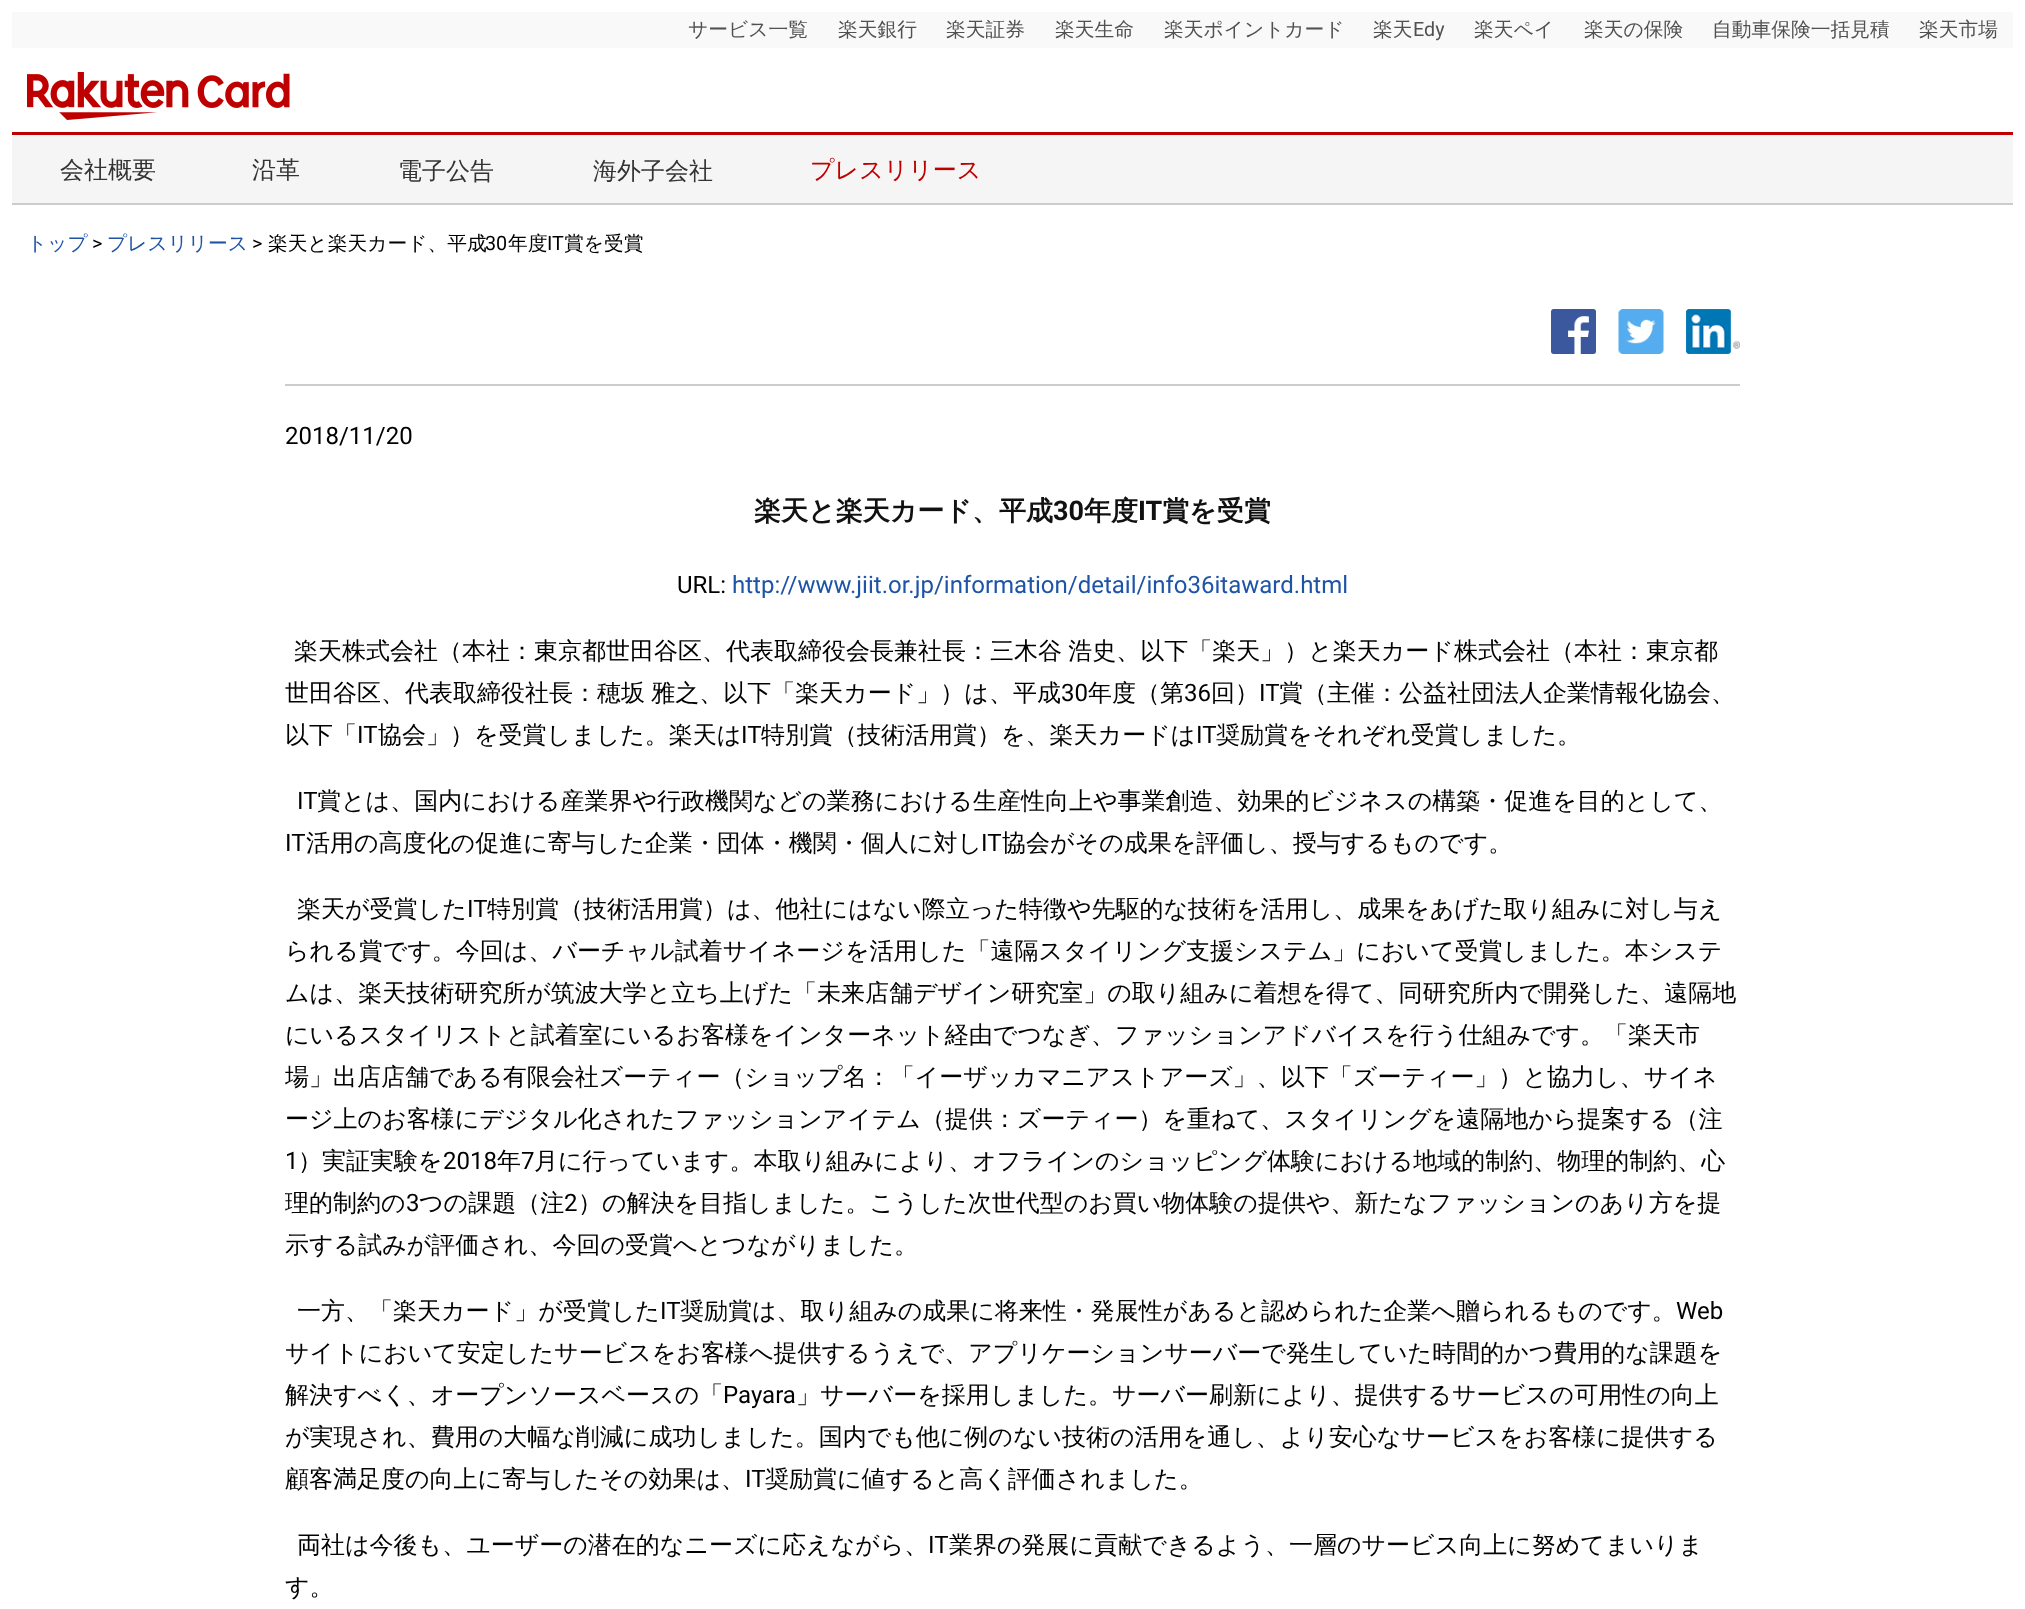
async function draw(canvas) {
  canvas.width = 2025
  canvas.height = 1609
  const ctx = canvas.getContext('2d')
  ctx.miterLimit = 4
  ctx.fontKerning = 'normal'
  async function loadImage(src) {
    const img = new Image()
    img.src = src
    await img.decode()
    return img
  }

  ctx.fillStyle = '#fff'
  ctx.fillRect(0, 0, 2025, 1609)
  ctx.fillStyle = '#f9f9f9'
  ctx.fillRect(12, 12, 2001, 36)
  ctx.font = '500 19.75px WenQuanYi Zen Hei'
  ctx.fillStyle = '#515151'
  ctx.fillText('サービス一覧', 688, 36)
  ctx.fillText('楽天銀行', 838, 36)
  ctx.fillText('楽天証券', 946, 36)
  ctx.fillText('楽天生命', 1055, 36)
  ctx.fillText('楽天ポイントカード', 1164, 36)
  ctx.fillText('楽天', 1373, 36)
  ctx.font = '19.75px Roboto'
  ctx.fillText('Edy', 1413, 36)
  ctx.font = '500 19.75px WenQuanYi Zen Hei'
  ctx.fillText('楽天ペイ', 1474, 36)
  ctx.fillText('楽天の保険', 1584, 36)
  ctx.fillText('自動車保険一括見積', 1712, 36)
  ctx.fillText('楽天市場', 1919, 36)
  ctx.fillStyle = '#bf0000'
  ctx.fillRect(12, 132, 2001, 3)
  ctx.drawImage(await loadImage('image0.png'), 27, 72, 263, 48)
  ctx.fillStyle = '#f5f5f5'
  ctx.fillRect(12, 135, 2001, 68)
  ctx.fillStyle = '#ccc'
  ctx.fillRect(12, 203, 2001, 2)
  ctx.font = '500 24px WenQuanYi Zen Hei'
  ctx.fillStyle = '#333'
  ctx.fillText('会社概要', 60, 178)
  ctx.fillText('沿革', 252, 178)
  ctx.fillText('電子公告', 398, 179)
  ctx.fillText('海外子会社', 593, 179)
  ctx.fillStyle = '#bf0000'
  ctx.fillText('プレスリリース', 810, 178)
  ctx.font = '500 19.75px WenQuanYi Zen Hei'
  ctx.fillStyle = '#1d54a7'
  ctx.fillText('トップ', 27, 250)
  ctx.font = '19.75px Roboto'
  ctx.fillStyle = '#000'
  ctx.fillText('>', 92, 250)
  ctx.font = '500 19.75px WenQuanYi Zen Hei'
  ctx.fillStyle = '#1d54a7'
  ctx.fillText('プレスリリース', 107, 250)
  ctx.font = '19.75px Roboto'
  ctx.fillStyle = '#000'
  ctx.fillText('>', 252, 250)
  ctx.font = '500 19.75px WenQuanYi Zen Hei'
  ctx.fillText('楽天と楽天カード、平成', 268, 250)
  ctx.font = '19.75px Roboto'
  ctx.fillText('30', 485, 250)
  ctx.font = '500 19.75px WenQuanYi Zen Hei'
  ctx.fillText('年度', 508, 250)
  ctx.font = '19.75px Roboto'
  ctx.fillText('IT', 547, 250)
  ctx.font = '500 19.75px WenQuanYi Zen Hei'
  ctx.fillText('賞を受賞', 564, 250)
  ctx.fillStyle = '#ccc'
  ctx.fillRect(285, 384, 1455, 2)
  ctx.drawImage(await loadImage('image1.png'), 1551, 309, 45, 45)
  ctx.drawImage(await loadImage('image2.png'), 1618, 309, 46, 45)
  ctx.drawImage(await loadImage('image3.png'), 1686, 309, 54, 45)
  ctx.font = '24px Roboto'
  ctx.fillStyle = '#000'
  ctx.fillText('2018/11/20', 285, 444)
  ctx.font = 'bold 27px WenQuanYi Zen Hei'
  ctx.fillStyle = '#111'
  ctx.fillText('楽天と楽天カード、平成', 754, 520)
  ctx.font = 'bold 27px Roboto'
  ctx.fillText('30', 1053, 520)
  ctx.font = 'bold 27px WenQuanYi Zen Hei'
  ctx.fillText('年度', 1084, 520)
  ctx.font = 'bold 27px Roboto'
  ctx.fillText('IT', 1138, 520)
  ctx.font = 'bold 27px WenQuanYi Zen Hei'
  ctx.fillText('賞を受賞', 1162, 520)
  ctx.font = '24px Roboto'
  ctx.fillStyle = '#000'
  ctx.fillText('URL:', 677, 593)
  ctx.fillStyle = '#1d54a7'
  ctx.fillText('http://www.jiit.or.jp/information/detail/info36itaward.html', 732, 593)
  ctx.wordSpacing = '-1px'
  ctx.font = '500 24px WenQuanYi Zen Hei'
  ctx.fillStyle = '#000'
  ctx.fillText('楽天株式会社（本社：東京都世田谷区、代表取締役会長兼社長：三木谷 浩史、以下「楽天」）と楽天カード株式会社（本社：東京都', 294, 659)
  ctx.fillText('世田谷区、代表取締役社長：穂坂 雅之、以下「楽天カード」）は、平成', 285, 701)
  ctx.wordSpacing = '0px'
  ctx.font = '24px Roboto'
  ctx.fillText('30', 1061, 701)
  ctx.font = '500 24px WenQuanYi Zen Hei'
  ctx.fillText('年度（第', 1088, 701)
  ctx.font = '24px Roboto'
  ctx.fillText('36', 1184, 701)
  ctx.font = '500 24px WenQuanYi Zen Hei'
  ctx.fillText('回）', 1211, 701)
  ctx.font = '24px Roboto'
  ctx.fillText('IT', 1259, 701)
  ctx.font = '500 24px WenQuanYi Zen Hei'
  ctx.fillText('賞（主催：公益社団法人企業情報化協会、', 1279, 701)
  ctx.fillText('以下「', 285, 743)
  ctx.font = '24px Roboto'
  ctx.fillText('IT', 357, 743)
  ctx.font = '500 24px WenQuanYi Zen Hei'
  ctx.fillText('協会」）を受賞しました。楽天は', 378, 743)
  ctx.font = '24px Roboto'
  ctx.fillText('IT', 741, 743)
  ctx.font = '500 24px WenQuanYi Zen Hei'
  ctx.fillText('特別賞（技術活用賞）を、楽天カードは', 761, 743)
  ctx.font = '24px Roboto'
  ctx.fillText('IT', 1196, 743)
  ctx.font = '500 24px WenQuanYi Zen Hei'
  ctx.fillText('奨励賞をそれぞれ受賞しました。', 1216, 743)
  ctx.font = '24px Roboto'
  ctx.fillText('IT', 297, 809)
  ctx.font = '500 24px WenQuanYi Zen Hei'
  ctx.fillText('賞とは、国内における産業界や行政機関などの業務における生産性向上や事業創造、効果的ビジネスの構築・促進を目的として、', 317, 809)
  ctx.font = '24px Roboto'
  ctx.fillText('IT', 285, 851)
  ctx.font = '500 24px WenQuanYi Zen Hei'
  ctx.fillText('活用の高度化の促進に寄与した企業・団体・機関・個人に対し', 306, 851)
  ctx.font = '24px Roboto'
  ctx.fillText('IT', 981, 851)
  ctx.font = '500 24px WenQuanYi Zen Hei'
  ctx.fillText('協会がその成果を評価し、授与するものです。', 1002, 851)
  ctx.fillText('楽天が受賞した', 297, 917)
  ctx.font = '24px Roboto'
  ctx.fillText('IT', 467, 917)
  ctx.font = '500 24px WenQuanYi Zen Hei'
  ctx.fillText('特別賞（技術活用賞）は、他社にはない際立った特徴や先駆的な技術を活用し、成果をあげた取り組みに対し与え', 487, 917)
  ctx.fillText('られる賞です。今回は、バーチャル試着サイネージを活用した「遠隔スタイリング支援システム」において受賞しました。本システ', 285, 959)
  ctx.fillText('ムは、楽天技術研究所が筑波大学と立ち上げた「未来店舗デザイン研究室」の取り組みに着想を得て、同研究所内で開発した、遠隔地', 285, 1001)
  ctx.fillText('にいるスタイリストと試着室にいるお客様をインターネット経由でつなぎ、ファッションアドバイスを行う仕組みです。「楽天市', 285, 1043)
  ctx.fillText('場」出店店舗である有限会社ズーティー（ショップ名：「イーザッカマニアストアーズ」、以下「ズーティー」）と協力し、サイネ', 285, 1085)
  ctx.fillText('ージ上のお客様にデジタル化されたファッションアイテム（提供：ズーティー）を重ねて、スタイリングを遠隔地から提案する（注', 285, 1127)
  ctx.font = '24px Roboto'
  ctx.fillText('1', 285, 1169)
  ctx.font = '500 24px WenQuanYi Zen Hei'
  ctx.fillText('）実証実験を', 298, 1169)
  ctx.font = '24px Roboto'
  ctx.fillText('2018', 443, 1169)
  ctx.font = '500 24px WenQuanYi Zen Hei'
  ctx.fillText('年', 497, 1169)
  ctx.font = '24px Roboto'
  ctx.fillText('7', 521, 1169)
  ctx.font = '500 24px WenQuanYi Zen Hei'
  ctx.fillText('月に行っています。本取り組みにより、オフラインのショッピング体験における地域的制約、物理的制約、心', 534, 1169)
  ctx.fillText('理的制約の', 285, 1211)
  ctx.font = '24px Roboto'
  ctx.fillText('3', 406, 1211)
  ctx.font = '500 24px WenQuanYi Zen Hei'
  ctx.fillText('つの課題（注', 419, 1211)
  ctx.font = '24px Roboto'
  ctx.fillText('2', 564, 1211)
  ctx.font = '500 24px WenQuanYi Zen Hei'
  ctx.fillText('）の解決を目指しました。こうした次世代型のお買い物体験の提供や、新たなファッションのあり方を提', 578, 1211)
  ctx.fillText('示する試みが評価され、今回の受賞へとつながりました。', 285, 1253)
  ctx.fillText('一方、「楽天カード」が受賞した', 297, 1319)
  ctx.font = '24px Roboto'
  ctx.fillText('IT', 660, 1319)
  ctx.font = '500 24px WenQuanYi Zen Hei'
  ctx.fillText('奨励賞は、取り組みの成果に将来性・発展性があると認められた企業へ贈られるものです。', 680, 1319)
  ctx.font = '24px Roboto'
  ctx.fillText('Web', 1676, 1319)
  ctx.font = '500 24px WenQuanYi Zen Hei'
  ctx.fillText('サイトにおいて安定したサービスをお客様へ提供するうえで、アプリケーションサーバーで発生していた時間的かつ費用的な課題を', 285, 1361)
  ctx.fillText('解決すべく、オープンソースベースの「', 285, 1403)
  ctx.font = '24px Roboto'
  ctx.fillText('Payara', 723, 1403)
  ctx.font = '500 24px WenQuanYi Zen Hei'
  ctx.fillText('」サーバーを採用しました。サーバー刷新により、提供するサービスの可用性の向上', 796, 1403)
  ctx.fillText('が実現され、費用の大幅な削減に成功しました。国内でも他に例のない技術の活用を通し、より安心なサービスをお客様に提供する', 285, 1445)
  ctx.fillText('顧客満足度の向上に寄与したその効果は、', 285, 1487)
  ctx.font = '24px Roboto'
  ctx.fillText('IT', 745, 1487)
  ctx.font = '500 24px WenQuanYi Zen Hei'
  ctx.fillText('奨励賞に値すると高く評価されました。', 765, 1487)
  ctx.fillText('両社は今後も、ユーザーの潜在的なニーズに応えながら、', 297, 1553)
  ctx.font = '24px Roboto'
  ctx.fillText('IT', 928, 1553)
  ctx.font = '500 24px WenQuanYi Zen Hei'
  ctx.fillText('業界の発展に貢献できるよう、一層のサービス向上に努めてまいりま', 949, 1553)
  ctx.fillText('す。', 285, 1595)
}

draw(document.querySelector('canvas'))
